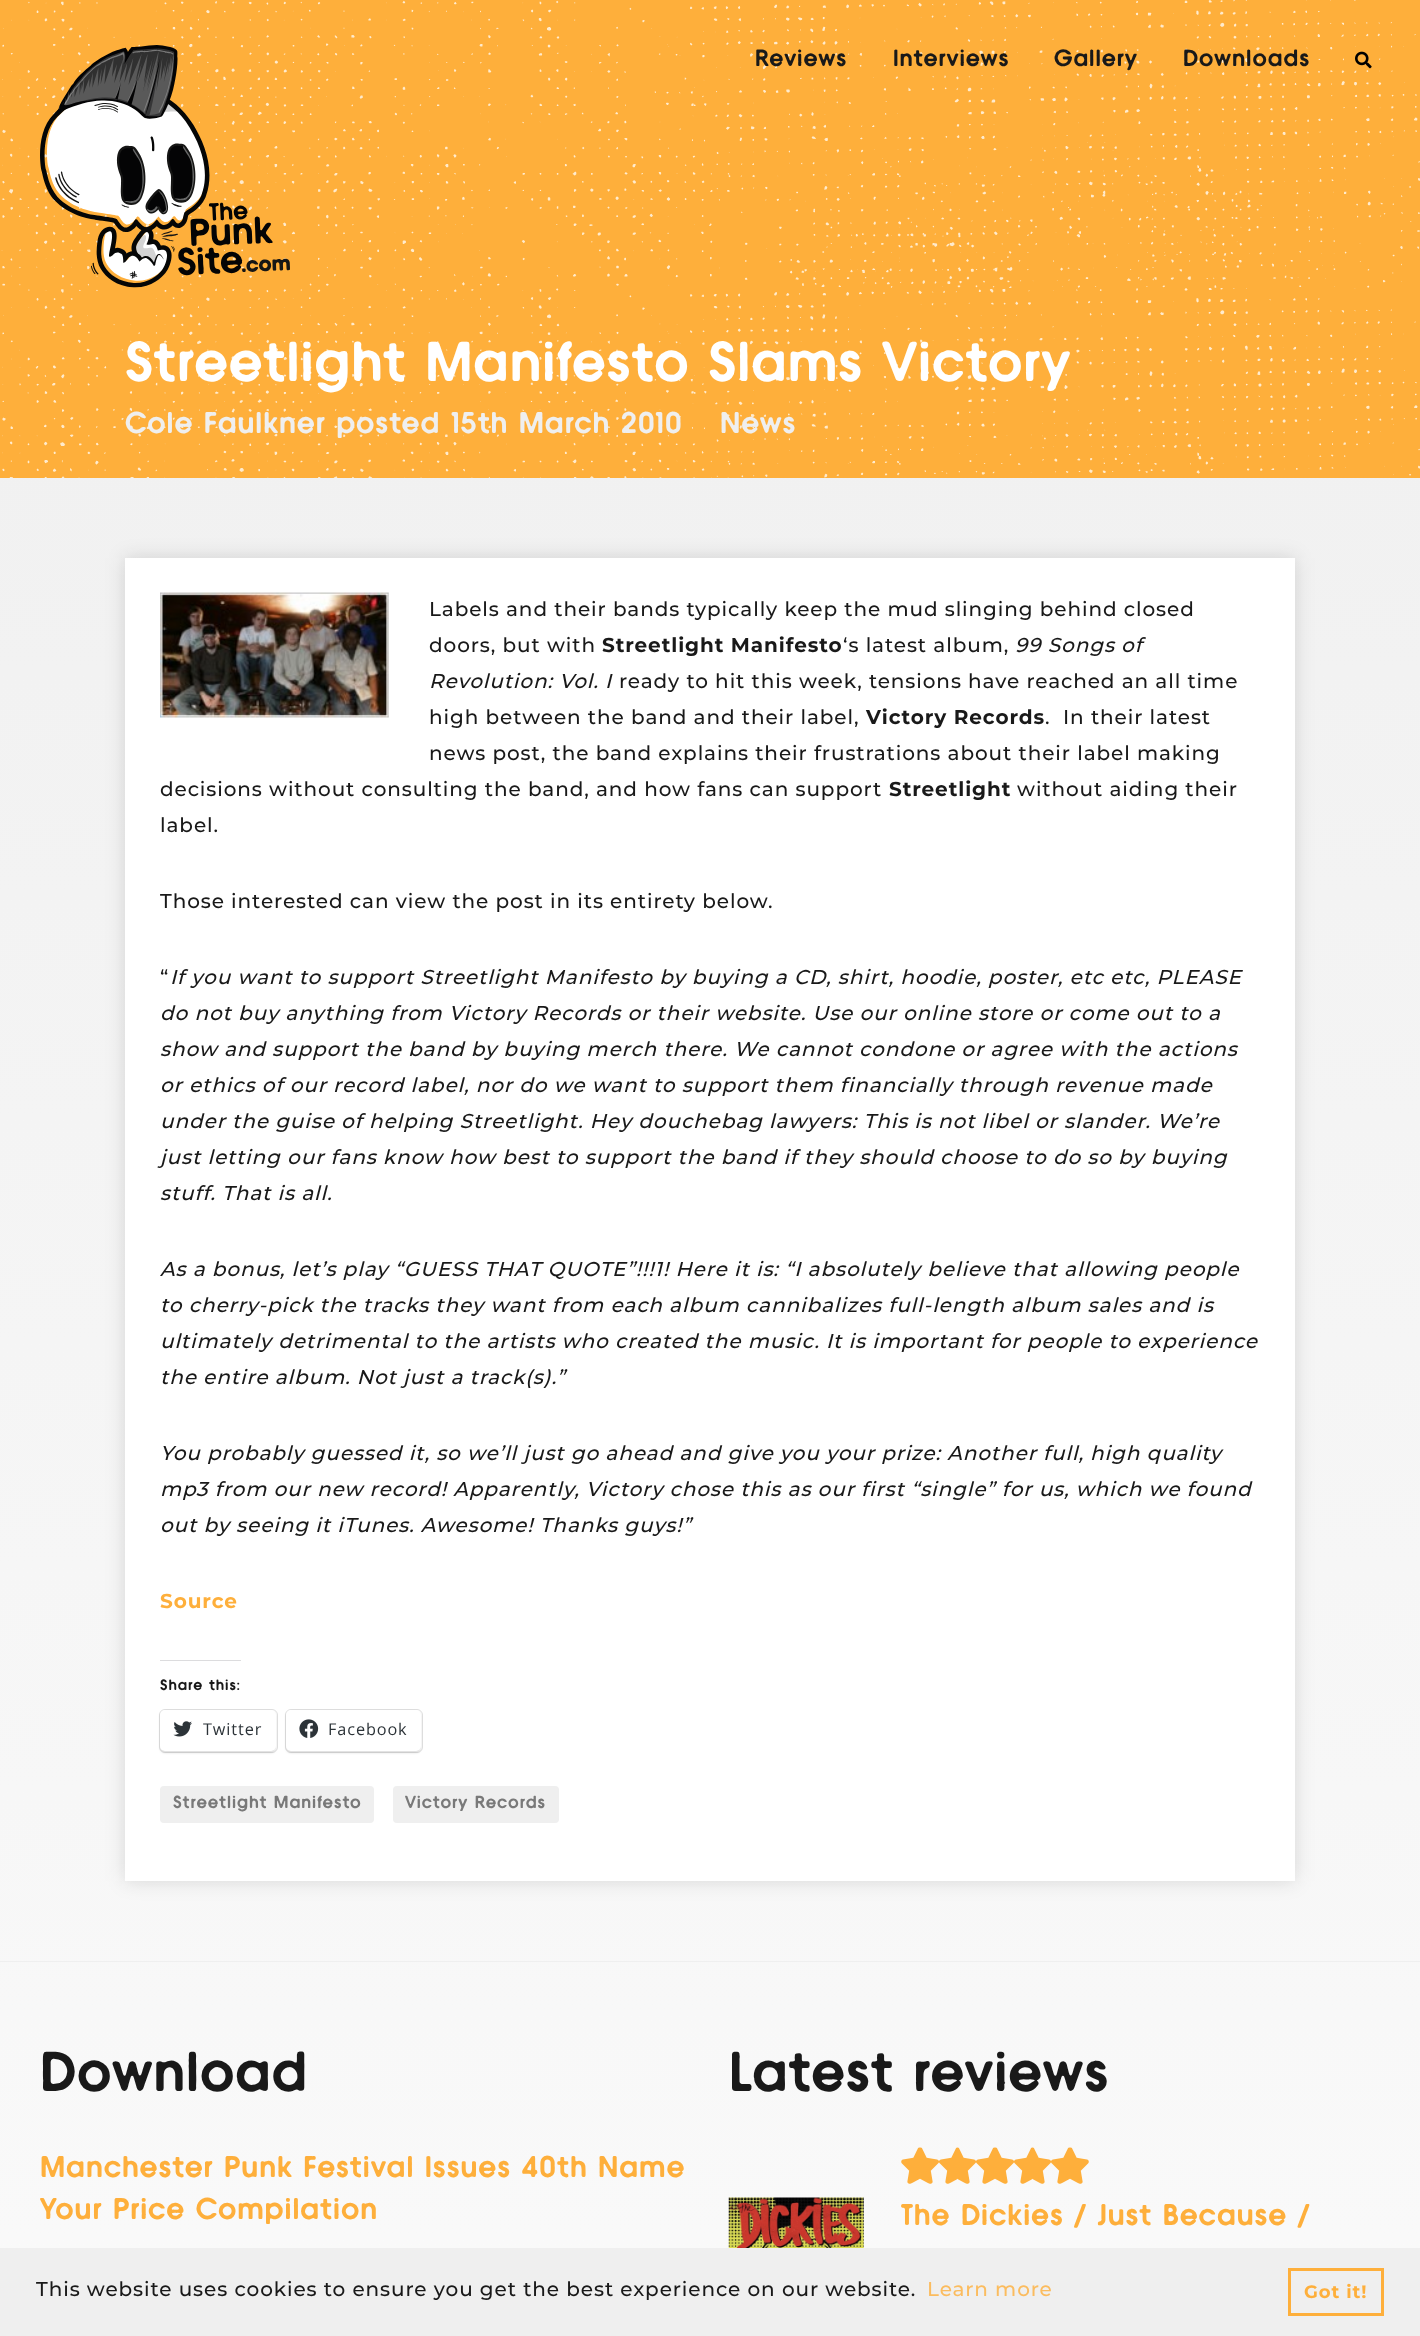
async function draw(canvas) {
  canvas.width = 1420
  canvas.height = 2336
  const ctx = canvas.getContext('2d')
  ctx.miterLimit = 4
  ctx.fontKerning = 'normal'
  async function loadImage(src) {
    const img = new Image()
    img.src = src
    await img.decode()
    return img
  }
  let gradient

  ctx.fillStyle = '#fff'
  ctx.fillRect(0, 0, 1420, 2336)
  gradient = ctx.createLinearGradient(710, 0, 710, 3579)
  gradient.addColorStop(0, '#efefef')
  gradient.addColorStop(1, '#fff')
  ctx.fillStyle = gradient
  ctx.fillRect(0, 478, 1420, 1770)
  ctx.fillStyle = '#feaf3b'
  ctx.fillRect(0, 0, 1420, 478)
  ctx.drawImage(await loadImage('image0.png'), 1, 0, 1419, 288)
  ctx.drawImage(await loadImage('image1.png'), 40, 45, 250, 243)
  ctx.letterSpacing = '0.9px'
  ctx.font = 'bold 23.5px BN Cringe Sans'
  ctx.fillStyle = '#191919'
  ctx.fillText('Reviews', 755, 66)
  ctx.fillText('Interviews', 893, 66)
  ctx.fillText('Gallery', 1054, 66)
  ctx.fillText('Downloads', 1183, 66)
  ctx.drawImage(await loadImage('image2.png'), 1355, 51, 17, 18)
  ctx.drawImage(await loadImage('image3.png'), 2, 288, 1418, 190)
  ctx.font = 'bold 56.25px BN Cringe Sans'
  ctx.fillStyle = '#fff'
  ctx.fillText('Streetlight Manifesto Slams Victory', 125, 381)
  ctx.font = 'bold 30px BN Cringe Sans'
  ctx.fillStyle = '#efefef'
  ctx.fillText('Cole Faulkner posted 15th March 2010', 125, 433)
  ctx.fillText('News', 720, 433)
  ctx.fillStyle = '#19191926'
  ctx.filter = 'blur(9.5px)'
  ctx.beginPath()
  ctx.rect(125, 558, 1170, 1323)
  ctx.fill()
  ctx.filter = 'none'
  ctx.fillStyle = '#fff'
  ctx.fillRect(125, 558, 1170, 1323)
  ctx.drawImage(await loadImage('image4.png'), 160, 592, 229, 126)
  ctx.font = '500 20px Montserrat'
  ctx.fillStyle = '#191919'
  ctx.fillText('Labels and their bands typically keep the mud slinging behind closed', 429, 616)
  ctx.fillText('doors, but with', 429, 652)
  ctx.font = 'bold 20px Montserrat'
  ctx.fillText('Streetlight Manifesto', 602, 652)
  ctx.font = '500 20px Montserrat'
  ctx.fillText('‘s latest album,', 843, 652)
  ctx.font = 'italic 500 20px Montserrat'
  ctx.fillText('99 Songs of', 1015, 652)
  ctx.fillText('Revolution: Vol. I', 429, 688)
  ctx.font = '500 20px Montserrat'
  ctx.fillText('ready to hit this week, tensions have reached an all time', 619, 688)
  ctx.fillText('high between the band and their label,', 429, 724)
  ctx.font = 'bold 20px Montserrat'
  ctx.fillText('Victory Records', 866, 724)
  ctx.font = '500 20px Montserrat'
  ctx.fillText('.  In their latest', 1045, 724)
  ctx.fillText('news post, the band explains their frustrations about their label making', 429, 760)
  ctx.fillText('decisions without consulting the band, and how fans can support', 160, 796)
  ctx.font = 'bold 20px Montserrat'
  ctx.fillText('Streetlight', 889, 796)
  ctx.font = '500 20px Montserrat'
  ctx.fillText('without aiding their', 1017, 796)
  ctx.fillText('label.', 160, 832)
  ctx.fillText('Those interested can view the post in its entirety below.', 160, 908)
  ctx.fillText('“', 160, 984)
  ctx.font = 'italic 500 20px Montserrat'
  ctx.fillText('If you want to support Streetlight Manifesto by buying a CD, shirt, hoodie, poster, etc etc, PLEASE', 170, 984)
  ctx.fillText('do not buy anything from Victory Records or their website. Use our online store or come out to a', 160, 1020)
  ctx.fillText('show and support the band by buying merch there. We cannot condone or agree with the actions', 160, 1056)
  ctx.fillText('or ethics of our record label, nor do we want to support them financially through revenue made', 160, 1092)
  ctx.fillText('under the guise of helping Streetlight. Hey douchebag lawyers: This is not libel or slander. We’re', 160, 1128)
  ctx.fillText('just letting our fans know how best to support the band if they should choose to do so by buying', 160, 1164)
  ctx.fillText('stuff. That is all.', 160, 1200)
  ctx.fillText('As a bonus, let’s play “GUESS THAT QUOTE”!!!1! Here it is: “I absolutely believe that allowing people', 160, 1276)
  ctx.fillText('to cherry-pick the tracks they want from each album cannibalizes full-length album sales and is', 160, 1312)
  ctx.fillText('ultimately detrimental to the artists who created the music. It is important for people to experience', 160, 1348)
  ctx.fillText('the entire album. Not just a track(s).”', 160, 1384)
  ctx.fillText('You probably guessed it, so we’ll just go ahead and give you your prize: Another full, high quality', 160, 1460)
  ctx.fillText('mp3 from our new record! Apparently, Victory chose this as our first “single” for us, which we found', 160, 1496)
  ctx.fillText('out by seeing it iTunes. Awesome! Thanks guys!”', 160, 1532)
  ctx.font = 'bold 20px Montserrat'
  ctx.fillStyle = '#feaf3b'
  ctx.fillText('Source', 160, 1608)
  ctx.fillStyle = '#dcdcde'
  ctx.fillRect(160, 1660, 81, 1)
  ctx.font = 'bold 15px BN Cringe Sans'
  ctx.fillStyle = '#191919'
  ctx.fillText('Share this:', 160, 1690)
  ctx.beginPath()
  ctx.roundRect(159.5, 1709.5, 118, 43, 5.5)
  ctx.strokeStyle = '#e0e0e0'
  ctx.stroke()
  ctx.fillStyle = '#0000001f'
  ctx.filter = 'blur(1px)'
  ctx.beginPath()
  ctx.roundRect(160, 1711, 116, 42, 5)
  ctx.fill()
  ctx.filter = 'none'
  ctx.fillStyle = '#fff'
  ctx.beginPath()
  ctx.roundRect(160, 1710, 116, 41, 5)
  ctx.fill()
  ctx.drawImage(await loadImage('image5.png'), 173, 1721, 19, 16)
  ctx.font = '16.25px Open Sans'
  ctx.fillStyle = '#2c3338'
  ctx.fillText('Twitter', 203, 1735)
  ctx.beginPath()
  ctx.roundRect(285.5, 1709.5, 137, 43, 5.5)
  ctx.stroke()
  ctx.fillStyle = '#0000001f'
  ctx.filter = 'blur(1px)'
  ctx.beginPath()
  ctx.roundRect(286, 1711, 135, 42, 5)
  ctx.fill()
  ctx.filter = 'none'
  ctx.fillStyle = '#fff'
  ctx.beginPath()
  ctx.roundRect(286, 1710, 135, 41, 5)
  ctx.fill()
  ctx.drawImage(await loadImage('image6.png'), 299, 1719, 20, 19)
  ctx.fillStyle = '#2c3338'
  ctx.fillText('Facebook', 328, 1735)
  ctx.fillStyle = '#efefef'
  ctx.beginPath()
  ctx.roundRect(160, 1786, 214, 37, 4)
  ctx.fill()
  ctx.font = 'bold 17.5px BN Cringe Sans'
  ctx.fillStyle = '#797979'
  ctx.fillText('Streetlight Manifesto', 173, 1808)
  ctx.fillStyle = '#efefef'
  ctx.beginPath()
  ctx.roundRect(393, 1786, 166, 37, 4)
  ctx.fill()
  ctx.fillStyle = '#797979'
  ctx.fillText('Victory Records', 405, 1808)
  ctx.fillStyle = '#efefef'
  ctx.fillRect(0, 1961, 1420, 1)
  ctx.font = 'bold 56.25px BN Cringe Sans'
  ctx.fillStyle = '#191919'
  ctx.fillText('Download', 40, 2091)
  ctx.font = 'bold 30px BN Cringe Sans'
  ctx.fillStyle = '#feaf3b'
  ctx.fillText('Manchester Punk Festival Issues 40th Name', 40, 2177)
  ctx.fillText('Your Price Compilation', 40, 2219)
  ctx.font = 'bold 56.25px BN Cringe Sans'
  ctx.fillStyle = '#191919'
  ctx.fillText('Latest reviews', 729, 2091)
  ctx.drawImage(await loadImage('image7.png'), 728, 2197, 136, 51)
  ctx.drawImage(await loadImage('image8.png'), 901, 2147, 188, 37)
  ctx.font = 'bold 30px BN Cringe Sans'
  ctx.fillStyle = '#feaf3b'
  ctx.fillText('The Dickies / Just Because /', 901, 2225)
  ctx.fillStyle = '#efefef'
  ctx.fillRect(0, 2248, 1420, 88)
  ctx.font = '500 20px Montserrat'
  ctx.fillStyle = '#191919'
  ctx.fillText('This website uses cookies to ensure you get the best experience on our website.', 36, 2296)
  ctx.fillStyle = '#fbbc5f'
  ctx.fillText('Learn more', 927, 2296)
  ctx.strokeStyle = '#feaf3b'
  ctx.lineWidth = 3
  ctx.strokeRect(1289.5, 2269.5, 93, 45)
  ctx.font = 'bold 18px Montserrat'
  ctx.fillStyle = '#feaf3b'
  ctx.fillText('Got it!', 1304, 2298)
}

draw(document.querySelector('canvas'))
